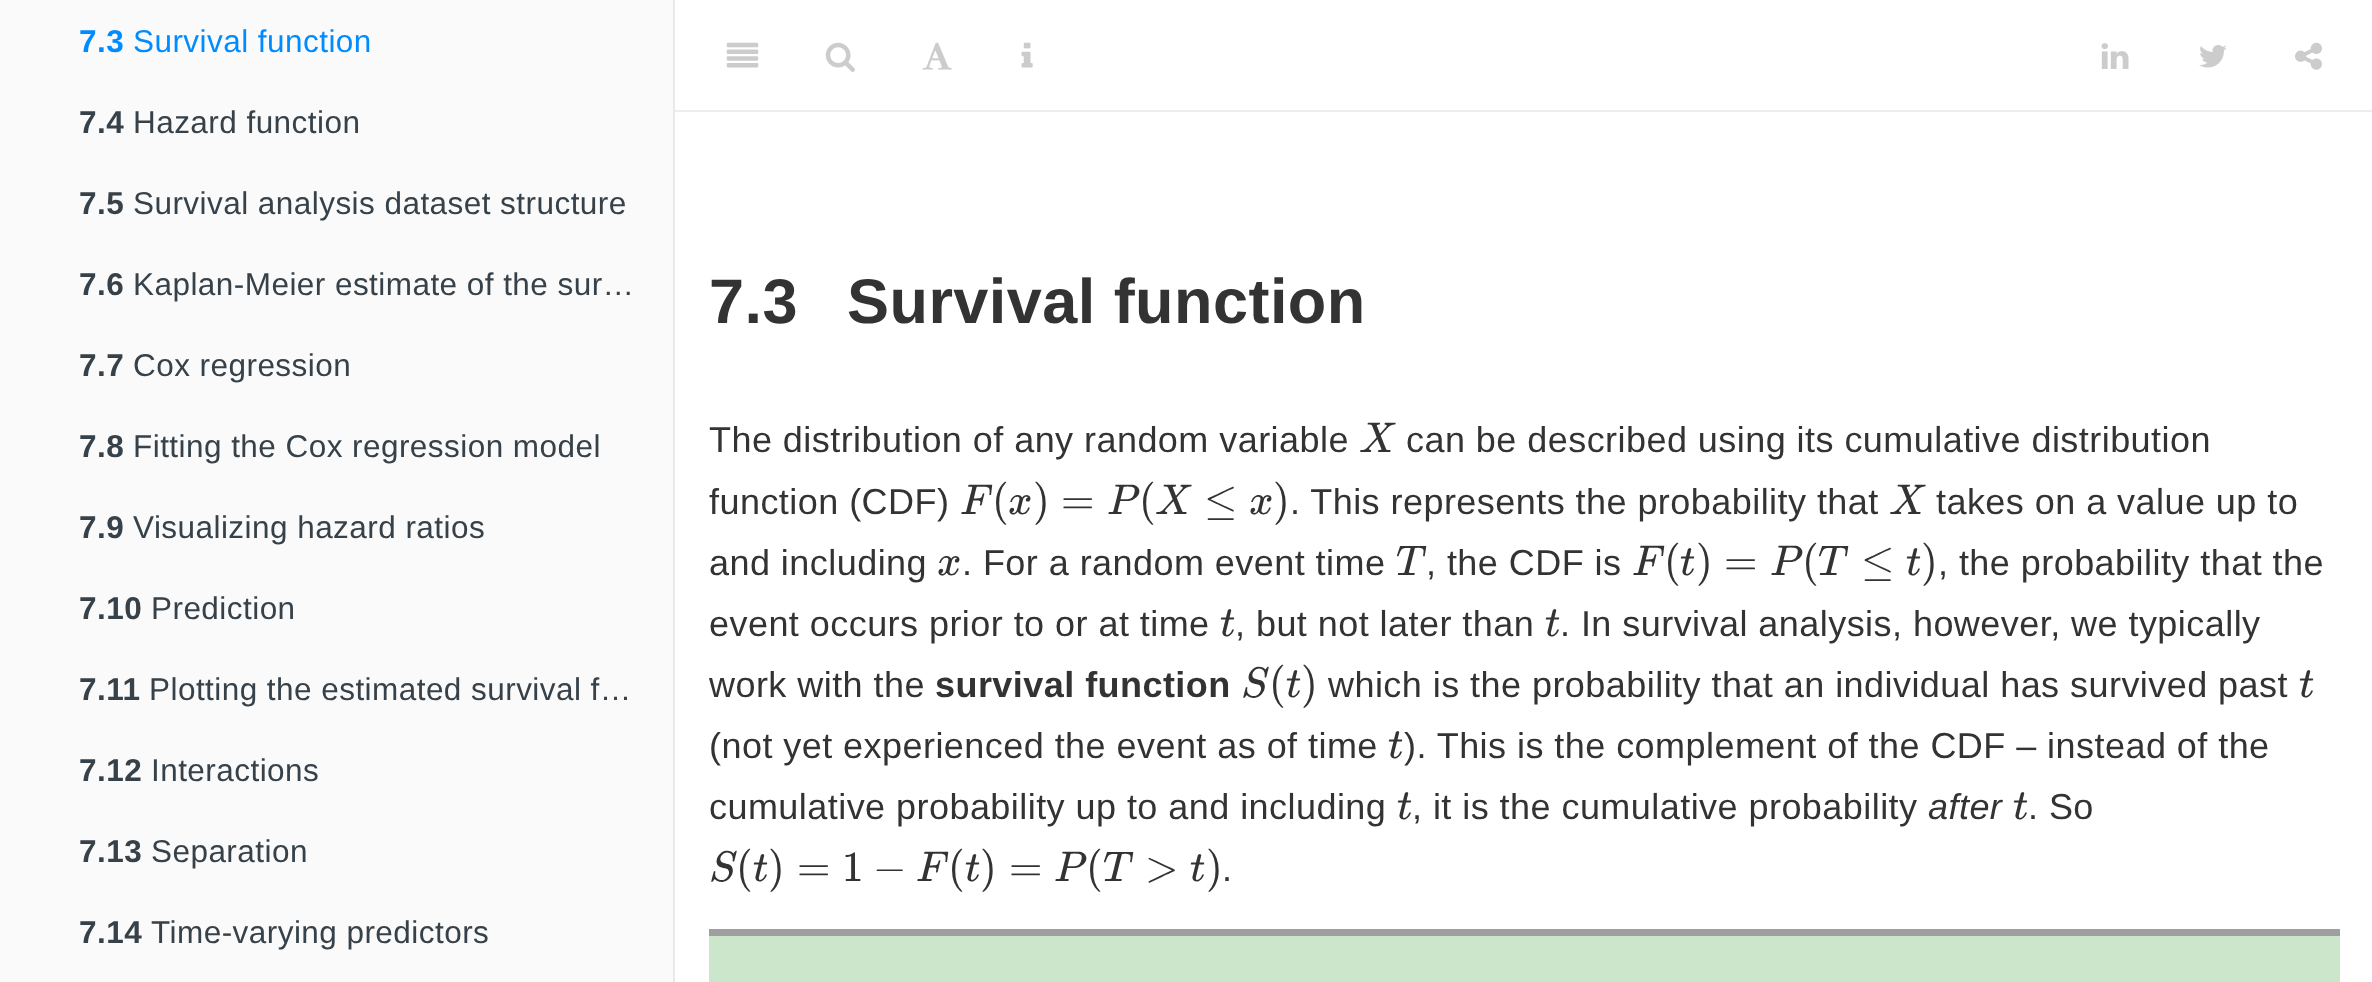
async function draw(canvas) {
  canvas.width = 2372
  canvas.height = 982
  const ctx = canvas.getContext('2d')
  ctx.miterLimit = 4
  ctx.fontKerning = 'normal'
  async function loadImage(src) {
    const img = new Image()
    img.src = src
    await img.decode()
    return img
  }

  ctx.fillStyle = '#fff'
  ctx.fillRect(0, 0, 2372, 982)
  ctx.fillStyle = '#fafafa'
  ctx.fillRect(0, 0, 673, 982)
  ctx.fillStyle = '#e9e9e9'
  ctx.fillRect(673, 0, 2, 982)
  ctx.letterSpacing = '0.45px'
  ctx.font = 'bold 31.5px Liberation Sans'
  ctx.fillStyle = '#008cff'
  ctx.fillText('7.3', 79, 52)
  ctx.font = '31.5px Liberation Sans'
  ctx.fillText('Survival function', 133, 52)
  ctx.font = 'bold 31.5px Liberation Sans'
  ctx.fillStyle = '#364149'
  ctx.fillText('7.4', 79, 133)
  ctx.font = '31.5px Liberation Sans'
  ctx.fillText('Hazard function', 133, 133)
  ctx.font = 'bold 31.5px Liberation Sans'
  ctx.fillText('7.5', 79, 214)
  ctx.font = '31.5px Liberation Sans'
  ctx.fillText('Survival analysis dataset structure', 133, 214)
  ctx.font = 'bold 31.5px Liberation Sans'
  ctx.fillText('7.6', 79, 295)
  ctx.font = '31.5px Liberation Sans'
  ctx.fillText('Kaplan-Meier estimate of the sur…', 133, 295)
  ctx.font = 'bold 31.5px Liberation Sans'
  ctx.fillText('7.7', 79, 376)
  ctx.font = '31.5px Liberation Sans'
  ctx.fillText('Cox regression', 133, 376)
  ctx.font = 'bold 31.5px Liberation Sans'
  ctx.fillText('7.8', 79, 457)
  ctx.font = '31.5px Liberation Sans'
  ctx.fillText('Fitting the Cox regression model', 133, 457)
  ctx.font = 'bold 31.5px Liberation Sans'
  ctx.fillText('7.9', 79, 538)
  ctx.font = '31.5px Liberation Sans'
  ctx.fillText('Visualizing hazard ratios', 133, 538)
  ctx.font = 'bold 31.5px Liberation Sans'
  ctx.fillText('7.10', 79, 619)
  ctx.font = '31.5px Liberation Sans'
  ctx.fillText('Prediction', 151, 619)
  ctx.font = 'bold 31.5px Liberation Sans'
  ctx.fillText('7.11', 79, 700)
  ctx.font = '31.5px Liberation Sans'
  ctx.fillText('Plotting the estimated survival f…', 149, 700)
  ctx.font = 'bold 31.5px Liberation Sans'
  ctx.fillText('7.12', 79, 781)
  ctx.font = '31.5px Liberation Sans'
  ctx.fillText('Interactions', 151, 781)
  ctx.font = 'bold 31.5px Liberation Sans'
  ctx.fillText('7.13', 79, 862)
  ctx.font = '31.5px Liberation Sans'
  ctx.fillText('Separation', 151, 862)
  ctx.font = 'bold 31.5px Liberation Sans'
  ctx.fillText('7.14', 79, 943)
  ctx.font = '31.5px Liberation Sans'
  ctx.fillText('Time-varying predictors', 151, 943)
  ctx.fillStyle = '#ededed'
  ctx.fillRect(675, 110, 1697, 2)
  ctx.drawImage(await loadImage('image0.png'), 726, 42, 33, 26)
  ctx.drawImage(await loadImage('image1.png'), 825, 42, 30, 30)
  ctx.drawImage(await loadImage('image2.png'), 922, 42, 30, 28)
  ctx.drawImage(await loadImage('image3.png'), 1021, 42, 12, 26)
  ctx.drawImage(await loadImage('image4.png'), 2101, 43, 28, 26)
  ctx.drawImage(await loadImage('image5.png'), 2199, 45, 28, 23)
  ctx.drawImage(await loadImage('image6.png'), 2295, 42, 27, 28)
  ctx.font = 'bold 63px Liberation Sans'
  ctx.fillStyle = '#333'
  ctx.fillText('7.3', 709, 323)
  ctx.fillText('Survival function', 847, 323)
  ctx.font = '36px Liberation Sans'
  ctx.fillText('The distribution of any random variable', 709, 452)
  ctx.letterSpacing = '0px'
  ctx.font = 'italic 43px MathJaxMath'
  ctx.fillText('X', 1359, 452)
  ctx.letterSpacing = '0.45px'
  ctx.font = '36px Liberation Sans'
  ctx.fillText('can be described using its cumulative distribution', 1406, 452)
  ctx.fillText('function (CDF)', 709, 514)
  ctx.letterSpacing = '0px'
  ctx.font = 'italic 43px MathJaxMath'
  ctx.fillText('F', 960, 514)
  ctx.font = '43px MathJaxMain'
  ctx.fillText('(', 992, 514)
  ctx.font = 'italic 43px MathJaxMath'
  ctx.fillText('x', 1008, 514)
  ctx.font = '43px MathJaxMain'
  ctx.fillText(')', 1033, 514)
  ctx.fillText('=', 1061, 514)
  ctx.font = 'italic 43px MathJaxMath'
  ctx.fillText('P', 1107, 514)
  ctx.font = '43px MathJaxMain'
  ctx.fillText('(', 1139, 514)
  ctx.font = 'italic 43px MathJaxMath'
  ctx.fillText('X', 1155, 514)
  ctx.font = '43px MathJaxMain'
  ctx.fillText('≤', 1204, 514)
  ctx.font = 'italic 43px MathJaxMath'
  ctx.fillText('x', 1249, 514)
  ctx.font = '43px MathJaxMain'
  ctx.fillText(')', 1273, 514)
  ctx.letterSpacing = '0.45px'
  ctx.font = '36px Liberation Sans'
  ctx.fillText('. This represents the probability that', 1290, 514)
  ctx.letterSpacing = '0px'
  ctx.font = 'italic 43px MathJaxMath'
  ctx.fillText('X', 1889, 514)
  ctx.letterSpacing = '0.45px'
  ctx.font = '36px Liberation Sans'
  ctx.fillText('takes on a value up to', 1936, 514)
  ctx.fillText('and including', 709, 575)
  ctx.letterSpacing = '0px'
  ctx.font = 'italic 43px MathJaxMath'
  ctx.fillText('x', 937, 575)
  ctx.letterSpacing = '0.45px'
  ctx.font = '36px Liberation Sans'
  ctx.fillText('. For a random event time', 962, 575)
  ctx.letterSpacing = '0px'
  ctx.font = 'italic 43px MathJaxMath'
  ctx.fillText('T', 1396, 575)
  ctx.letterSpacing = '0.45px'
  ctx.font = '36px Liberation Sans'
  ctx.fillText(', the CDF is', 1426, 575)
  ctx.letterSpacing = '0px'
  ctx.font = 'italic 43px MathJaxMath'
  ctx.fillText('F', 1632, 575)
  ctx.font = '43px MathJaxMain'
  ctx.fillText('(', 1664, 575)
  ctx.font = 'italic 43px MathJaxMath'
  ctx.fillText('t', 1680, 575)
  ctx.font = '43px MathJaxMain'
  ctx.fillText(')', 1696, 575)
  ctx.fillText('=', 1724, 575)
  ctx.font = 'italic 43px MathJaxMath'
  ctx.fillText('P', 1770, 575)
  ctx.font = '43px MathJaxMain'
  ctx.fillText('(', 1802, 575)
  ctx.font = 'italic 43px MathJaxMath'
  ctx.fillText('T', 1818, 575)
  ctx.font = '43px MathJaxMain'
  ctx.fillText('≤', 1861, 575)
  ctx.font = 'italic 43px MathJaxMath'
  ctx.fillText('t', 1906, 575)
  ctx.font = '43px MathJaxMain'
  ctx.fillText(')', 1921, 575)
  ctx.letterSpacing = '0.45px'
  ctx.font = '36px Liberation Sans'
  ctx.fillText(', the probability that the', 1938, 575)
  ctx.fillText('event occurs prior to or at time', 709, 636)
  ctx.letterSpacing = '0px'
  ctx.font = 'italic 43px MathJaxMath'
  ctx.fillText('t', 1220, 636)
  ctx.letterSpacing = '0.45px'
  ctx.font = '36px Liberation Sans'
  ctx.fillText(', but not later than', 1235, 636)
  ctx.letterSpacing = '0px'
  ctx.font = 'italic 43px MathJaxMath'
  ctx.fillText('t', 1545, 636)
  ctx.letterSpacing = '0.45px'
  ctx.font = '36px Liberation Sans'
  ctx.fillText('. In survival analysis, however, we typically', 1560, 636)
  ctx.fillText('work with the', 709, 697)
  ctx.font = 'bold 36px Liberation Sans'
  ctx.fillText('survival function', 935, 697)
  ctx.letterSpacing = '0px'
  ctx.font = 'italic 43px MathJaxMath'
  ctx.fillText('S', 1241, 697)
  ctx.font = '43px MathJaxMain'
  ctx.fillText('(', 1269, 697)
  ctx.font = 'italic 43px MathJaxMath'
  ctx.fillText('t', 1286, 697)
  ctx.font = '43px MathJaxMain'
  ctx.fillText(')', 1301, 697)
  ctx.letterSpacing = '0.45px'
  ctx.font = '36px Liberation Sans'
  ctx.fillText('which is the probability that an individual has survived past', 1328, 697)
  ctx.letterSpacing = '0px'
  ctx.font = 'italic 43px MathJaxMath'
  ctx.fillText('t', 2299, 697)
  ctx.letterSpacing = '0.45px'
  ctx.font = '36px Liberation Sans'
  ctx.fillText('(not yet experienced the event as of time', 709, 758)
  ctx.letterSpacing = '0px'
  ctx.font = 'italic 43px MathJaxMath'
  ctx.fillText('t', 1388, 758)
  ctx.letterSpacing = '0.45px'
  ctx.font = '36px Liberation Sans'
  ctx.fillText('). This is the complement of the CDF – instead of the', 1404, 758)
  ctx.fillText('cumulative probability up to and including', 709, 819)
  ctx.letterSpacing = '0px'
  ctx.font = 'italic 43px MathJaxMath'
  ctx.fillText('t', 1397, 819)
  ctx.letterSpacing = '0.45px'
  ctx.font = '36px Liberation Sans'
  ctx.fillText(', it is the cumulative probability', 1412, 819)
  ctx.font = 'italic 36px Liberation Sans'
  ctx.fillText('after', 1928, 819)
  ctx.letterSpacing = '0px'
  ctx.font = 'italic 43px MathJaxMath'
  ctx.fillText('t', 2013, 819)
  ctx.letterSpacing = '0.45px'
  ctx.font = '36px Liberation Sans'
  ctx.fillText('. So', 2028, 819)
  ctx.letterSpacing = '0px'
  ctx.font = 'italic 43px MathJaxMath'
  ctx.fillText('S', 709, 881)
  ctx.font = '43px MathJaxMain'
  ctx.fillText('(', 736, 881)
  ctx.font = 'italic 43px MathJaxMath'
  ctx.fillText('t', 753, 881)
  ctx.font = '43px MathJaxMain'
  ctx.fillText(')', 768, 881)
  ctx.fillText('=', 797, 881)
  ctx.fillText('1', 842, 881)
  ctx.fillText('−', 873, 881)
  ctx.font = 'italic 43px MathJaxMath'
  ctx.fillText('F', 916, 881)
  ctx.font = '43px MathJaxMain'
  ctx.fillText('(', 948, 881)
  ctx.font = 'italic 43px MathJaxMath'
  ctx.fillText('t', 965, 881)
  ctx.font = '43px MathJaxMain'
  ctx.fillText(')', 980, 881)
  ctx.fillText('=', 1009, 881)
  ctx.font = 'italic 43px MathJaxMath'
  ctx.fillText('P', 1054, 881)
  ctx.font = '43px MathJaxMain'
  ctx.fillText('(', 1086, 881)
  ctx.font = 'italic 43px MathJaxMath'
  ctx.fillText('T', 1103, 881)
  ctx.font = '43px MathJaxMain'
  ctx.fillText('>', 1145, 881)
  ctx.font = 'italic 43px MathJaxMath'
  ctx.fillText('t', 1190, 881)
  ctx.font = '43px MathJaxMain'
  ctx.fillText(')', 1206, 881)
  ctx.letterSpacing = '0.45px'
  ctx.font = '36px Liberation Sans'
  ctx.fillText('.', 1222, 881)
  ctx.fillStyle = '#cce6cc'
  ctx.fillRect(709, 936, 1631, 46)
  ctx.fillStyle = '#9f9f9f'
  ctx.fillRect(709, 929, 1631, 7)
}

draw(document.querySelector('canvas'))
